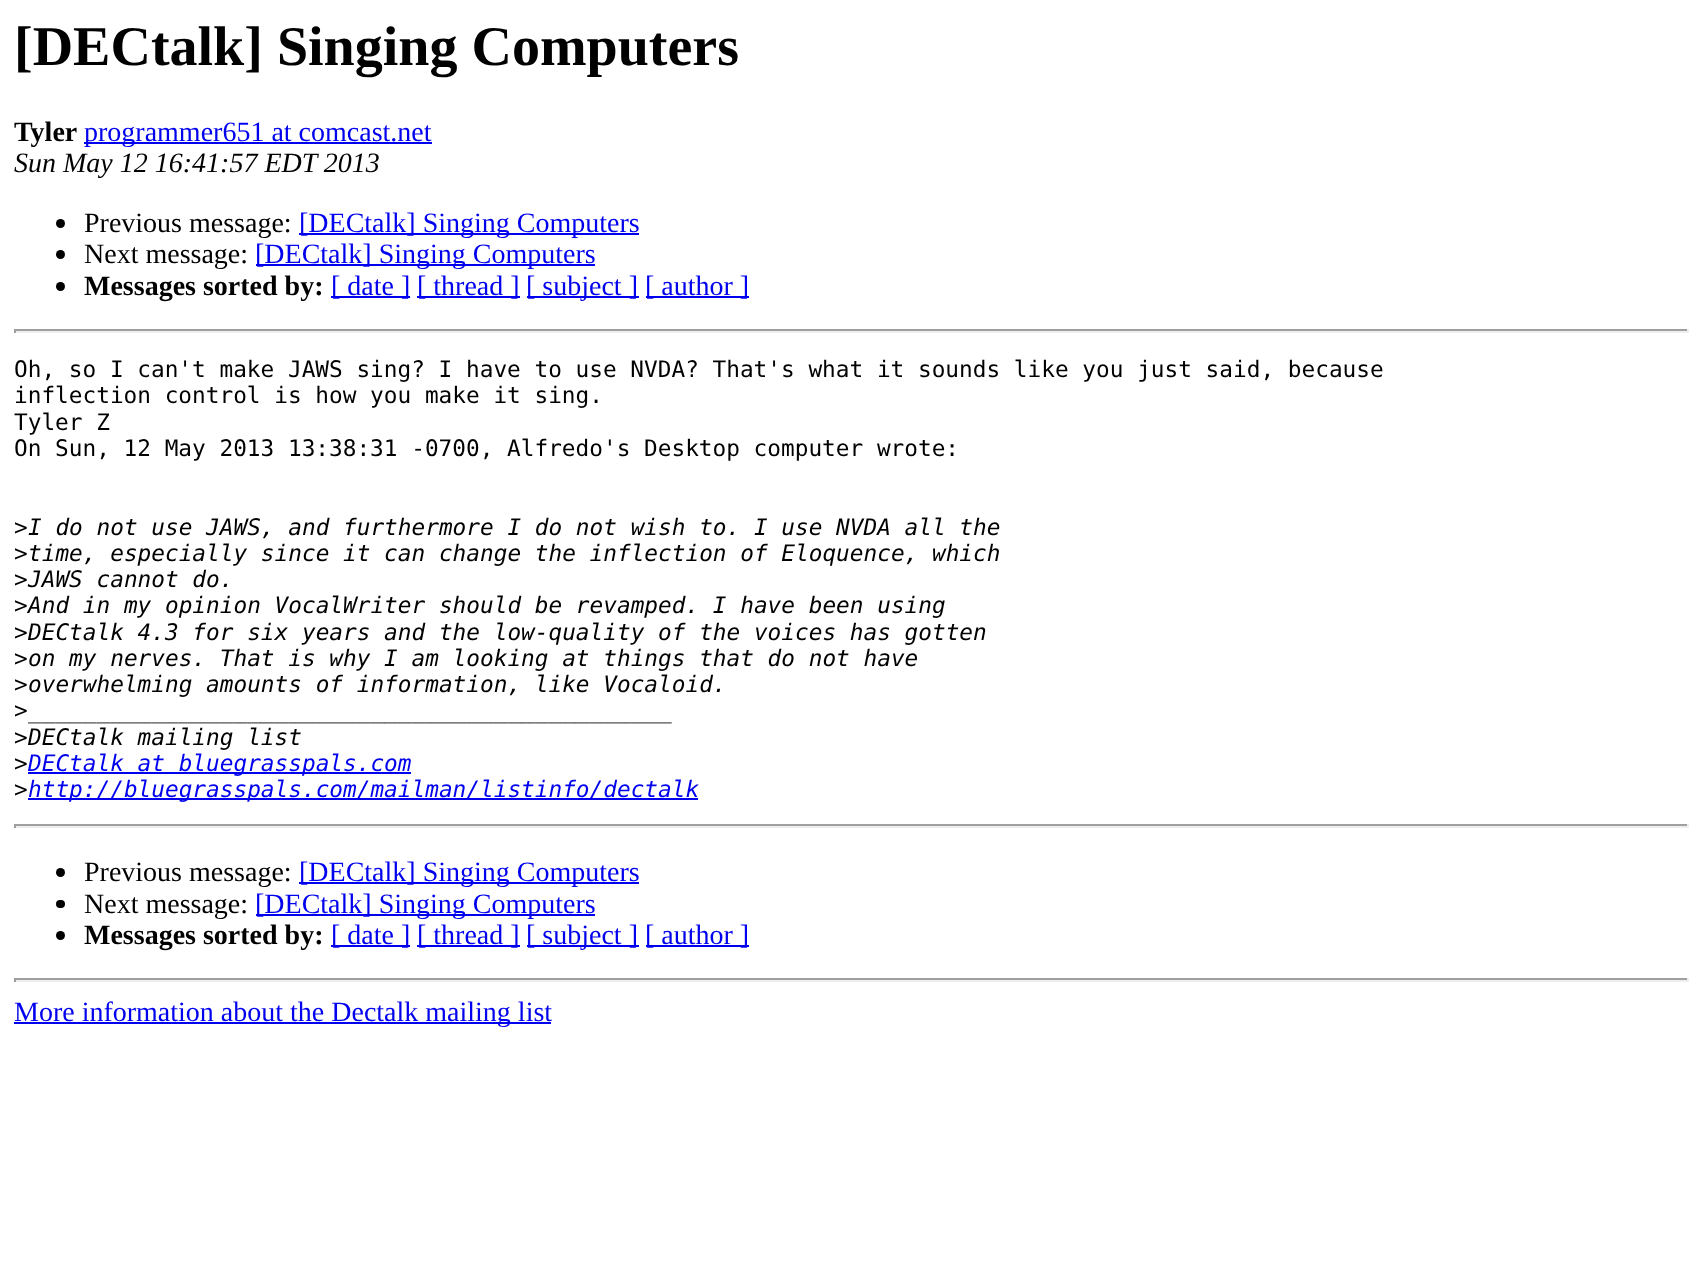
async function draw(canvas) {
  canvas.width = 1702
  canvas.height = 1288
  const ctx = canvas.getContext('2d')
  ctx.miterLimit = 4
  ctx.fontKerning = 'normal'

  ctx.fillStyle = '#fff'
  ctx.fillRect(0, 0, 1702, 1288)
  ctx.font = 'bold 56px Liberation Serif'
  ctx.fillStyle = '#000'
  ctx.fillText('[DECtalk] Singing Computers', 14, 65)
  ctx.font = 'bold 28px Liberation Serif'
  ctx.fillText('Tyler', 14, 141)
  ctx.fillStyle = '#00e'
  ctx.fillRect(84, 142, 348, 2)
  ctx.font = '28px Liberation Serif'
  ctx.fillText('programmer651 at comcast.net', 84, 141)
  ctx.font = 'italic 28px Liberation Serif'
  ctx.fillStyle = '#000'
  ctx.fillText('Sun May 12 16:41:57 EDT 2013', 14, 172)
  ctx.beginPath()
  ctx.arc(60.5, 223.5, 4.5, 0, 2 * Math.PI)
  ctx.fill()
  ctx.font = '28px Liberation Serif'
  ctx.fillText('Previous message:', 84, 232)
  ctx.fillStyle = '#00e'
  ctx.fillRect(299, 233, 340, 2)
  ctx.fillText('[DECtalk] Singing Computers', 299, 232)
  ctx.fillStyle = '#000'
  ctx.beginPath()
  ctx.arc(60.5, 254.5, 4.5, 0, 2 * Math.PI)
  ctx.fill()
  ctx.fillText('Next message:', 84, 263)
  ctx.fillStyle = '#00e'
  ctx.fillRect(256, 264, 339, 2)
  ctx.fillText('[DECtalk] Singing Computers', 255, 263)
  ctx.fillStyle = '#000'
  ctx.beginPath()
  ctx.arc(60.5, 286.5, 4.5, 0, 2 * Math.PI)
  ctx.fill()
  ctx.font = 'bold 28px Liberation Serif'
  ctx.fillText('Messages sorted by:', 84, 295)
  ctx.fillStyle = '#00e'
  ctx.fillRect(331, 296, 79, 2)
  ctx.font = '28px Liberation Serif'
  ctx.fillText('[ date ]', 331, 295)
  ctx.fillRect(417, 296, 103, 2)
  ctx.fillText('[ thread ]', 417, 295)
  ctx.fillRect(527, 296, 112, 2)
  ctx.fillText('[ subject ]', 526, 295)
  ctx.fillRect(646, 296, 103, 2)
  ctx.fillText('[ author ]', 645, 295)
  ctx.fillStyle = '#9f9f9f'
  ctx.fillRect(14, 329, 1675, 2)
  ctx.fillStyle = '#eee'
  ctx.fillRect(1687, 329, 2, 4)
  ctx.fillRect(14, 331, 1675, 2)
  ctx.fillStyle = '#9f9f9f'
  ctx.fillRect(14, 329, 2, 4)
  ctx.font = '22.75px DejaVu Sans Mono'
  ctx.fillStyle = '#000'
  ctx.fillText('Oh, so I can\'t make JAWS sing? I have to use NVDA? That\'s what it sounds like you just said, because', 14, 377)
  ctx.fillText('inflection control is how you make it sing.', 14, 403)
  ctx.fillText('Tyler Z', 14, 430)
  ctx.fillText('On Sun, 12 May 2013 13:38:31 -0700, Alfredo\'s Desktop computer wrote:', 14, 456)
  ctx.fillText('>', 14, 535)
  ctx.font = 'italic 22.75px DejaVu Sans Mono'
  ctx.fillText('I do not use JAWS, and furthermore I do not wish to. I use NVDA all the', 28, 535)
  ctx.font = '22.75px DejaVu Sans Mono'
  ctx.fillText('>', 14, 561)
  ctx.font = 'italic 22.75px DejaVu Sans Mono'
  ctx.fillText('time, especially since it can change the inflection of Eloquence, which', 28, 561)
  ctx.font = '22.75px DejaVu Sans Mono'
  ctx.fillText('>', 14, 587)
  ctx.font = 'italic 22.75px DejaVu Sans Mono'
  ctx.fillText('JAWS cannot do.', 28, 587)
  ctx.font = '22.75px DejaVu Sans Mono'
  ctx.fillText('>', 14, 613)
  ctx.font = 'italic 22.75px DejaVu Sans Mono'
  ctx.fillText('And in my opinion VocalWriter should be revamped. I have been using', 28, 613)
  ctx.font = '22.75px DejaVu Sans Mono'
  ctx.fillText('>', 14, 640)
  ctx.font = 'italic 22.75px DejaVu Sans Mono'
  ctx.fillText('DECtalk 4.3 for six years and the low-quality of the voices has gotten', 28, 640)
  ctx.font = '22.75px DejaVu Sans Mono'
  ctx.fillText('>', 14, 666)
  ctx.font = 'italic 22.75px DejaVu Sans Mono'
  ctx.fillText('on my nerves. That is why I am looking at things that do not have', 28, 666)
  ctx.font = '22.75px DejaVu Sans Mono'
  ctx.fillText('>', 14, 692)
  ctx.font = 'italic 22.75px DejaVu Sans Mono'
  ctx.fillText('overwhelming amounts of information, like Vocaloid.', 28, 692)
  ctx.font = '22.75px DejaVu Sans Mono'
  ctx.fillText('>', 14, 718)
  ctx.font = 'italic 22.75px DejaVu Sans Mono'
  ctx.fillText('_______________________________________________', 28, 718)
  ctx.font = '22.75px DejaVu Sans Mono'
  ctx.fillText('>', 14, 745)
  ctx.font = 'italic 22.75px DejaVu Sans Mono'
  ctx.fillText('DECtalk mailing list', 28, 745)
  ctx.font = '22.75px DejaVu Sans Mono'
  ctx.fillText('>', 14, 771)
  ctx.fillStyle = '#00e'
  ctx.fillRect(28, 772, 383, 2)
  ctx.font = 'italic 22.75px DejaVu Sans Mono'
  ctx.fillText('DECtalk at bluegrasspals.com', 28, 771)
  ctx.font = '22.75px DejaVu Sans Mono'
  ctx.fillStyle = '#000'
  ctx.fillText('>', 14, 797)
  ctx.fillStyle = '#00e'
  ctx.fillRect(28, 798, 670, 2)
  ctx.font = 'italic 22.75px DejaVu Sans Mono'
  ctx.fillText('http://bluegrasspals.com/mailman/listinfo/dectalk', 28, 797)
  ctx.fillStyle = '#9f9f9f'
  ctx.fillRect(14, 824, 1675, 2)
  ctx.fillStyle = '#eee'
  ctx.fillRect(1687, 824, 2, 4)
  ctx.fillRect(14, 826, 1675, 2)
  ctx.fillStyle = '#9f9f9f'
  ctx.fillRect(14, 824, 2, 4)
  ctx.fillStyle = '#000'
  ctx.beginPath()
  ctx.arc(60.5, 872.5, 4.5, 0, 2 * Math.PI)
  ctx.fill()
  ctx.font = '28px Liberation Serif'
  ctx.fillText('Previous message:', 84, 881)
  ctx.fillStyle = '#00e'
  ctx.fillRect(299, 882, 340, 2)
  ctx.fillText('[DECtalk] Singing Computers', 299, 881)
  ctx.fillStyle = '#000'
  ctx.beginPath()
  ctx.roundRect(56, 900, 9, 8, 4)
  ctx.fill()
  ctx.fillText('Next message:', 84, 913)
  ctx.fillStyle = '#00e'
  ctx.fillRect(256, 914, 339, 2)
  ctx.fillText('[DECtalk] Singing Computers', 255, 913)
  ctx.fillStyle = '#000'
  ctx.beginPath()
  ctx.arc(60.5, 935.5, 4.5, 0, 2 * Math.PI)
  ctx.fill()
  ctx.font = 'bold 28px Liberation Serif'
  ctx.fillText('Messages sorted by:', 84, 944)
  ctx.fillStyle = '#00e'
  ctx.fillRect(331, 945, 79, 2)
  ctx.font = '28px Liberation Serif'
  ctx.fillText('[ date ]', 331, 944)
  ctx.fillRect(417, 945, 103, 2)
  ctx.fillText('[ thread ]', 417, 944)
  ctx.fillRect(527, 945, 112, 2)
  ctx.fillText('[ subject ]', 526, 944)
  ctx.fillRect(646, 945, 103, 2)
  ctx.fillText('[ author ]', 645, 944)
  ctx.fillStyle = '#9f9f9f'
  ctx.fillRect(14, 978, 1675, 2)
  ctx.fillStyle = '#eee'
  ctx.fillRect(1687, 978, 2, 4)
  ctx.fillRect(14, 980, 1675, 2)
  ctx.fillStyle = '#9f9f9f'
  ctx.fillRect(14, 978, 2, 4)
  ctx.fillStyle = '#00e'
  ctx.fillRect(14, 1022, 537, 2)
  ctx.fillText('More information about the Dectalk mailing list', 14, 1021)
}

draw(document.querySelector('canvas'))
